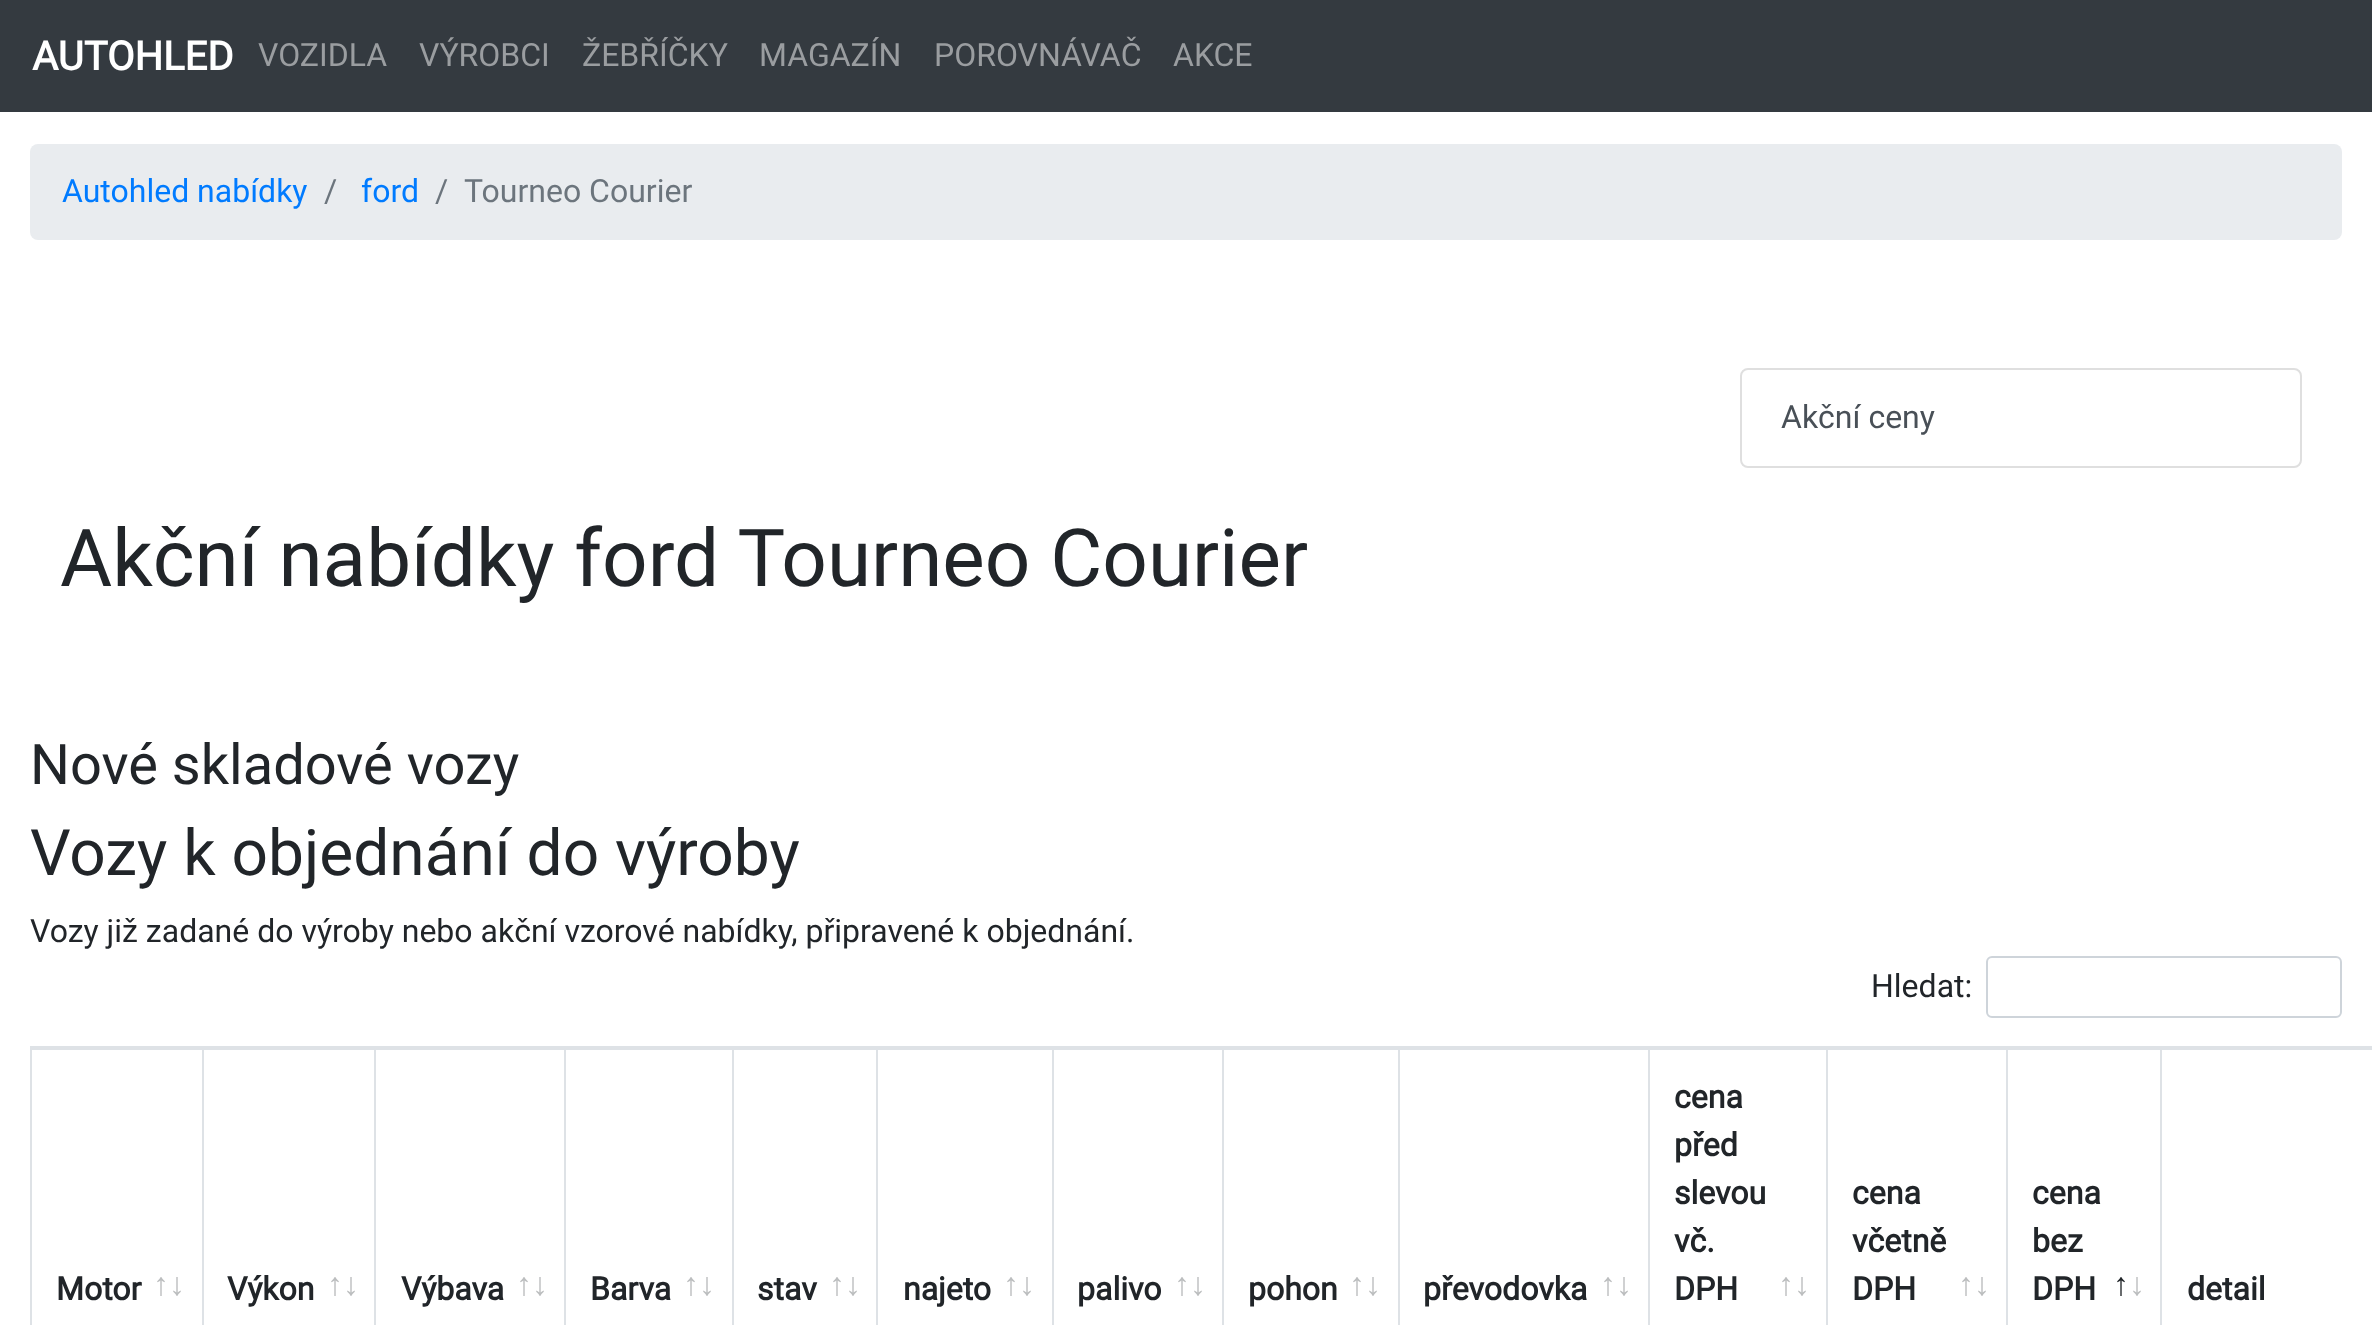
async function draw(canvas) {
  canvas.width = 2372
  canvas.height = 1325
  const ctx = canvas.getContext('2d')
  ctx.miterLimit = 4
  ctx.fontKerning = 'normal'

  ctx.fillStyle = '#fff'
  ctx.fillRect(0, 0, 2372, 1325)
  ctx.fillStyle = '#343a40'
  ctx.fillRect(0, 0, 2372, 112)
  ctx.font = 'bold 40px Roboto'
  ctx.fillStyle = '#fff'
  ctx.fillText('AUTOHLED', 32, 70)
  ctx.font = '32px Roboto'
  ctx.fillStyle = '#9a9da0'
  ctx.fillText('VOZIDLA', 258, 66)
  ctx.fillText('VÝROBCI', 419, 66)
  ctx.fillText('ŽEBŘÍČKY', 582, 66)
  ctx.fillText('MAGAZÍN', 759, 66)
  ctx.fillText('POROVNÁVAČ', 934, 66)
  ctx.fillText('AKCE', 1173, 66)
  ctx.fillStyle = '#e9ecef'
  ctx.beginPath()
  ctx.roundRect(30, 144, 2312, 96, 8)
  ctx.fill()
  ctx.fillStyle = '#007bff'
  ctx.fillText('Autohled nabídky', 62, 202)
  ctx.fillStyle = '#6c757d'
  ctx.fillText('/', 324, 202)
  ctx.fillStyle = '#007bff'
  ctx.fillText('ford', 361, 202)
  ctx.fillStyle = '#6c757d'
  ctx.fillText('/', 435, 202)
  ctx.fillText('Tourneo Courier', 464, 202)
  ctx.beginPath()
  ctx.roundRect(1741, 369, 560, 98, 7)
  ctx.strokeStyle = '#dfdfdf'
  ctx.lineWidth = 2
  ctx.stroke()
  ctx.fillStyle = '#495057'
  ctx.fillText('Akční ceny', 1781, 428)
  ctx.font = '80px Roboto'
  ctx.fillStyle = '#212529'
  ctx.fillText('Akční nabídky ford Tourneo Courier', 60, 586)
  ctx.font = '56px Roboto'
  ctx.fillText('Nové skladové vozy', 30, 784)
  ctx.font = '64px Roboto'
  ctx.fillText('Vozy k objednání do výroby', 30, 875)
  ctx.font = '32px Roboto'
  ctx.fillText('Vozy již zadané do výroby nebo akční vzorové nabídky, připravené k objednání.', 30, 942)
  ctx.fillText('Hledat:', 1871, 997)
  ctx.beginPath()
  ctx.roundRect(1987, 957, 354, 60, 5)
  ctx.strokeStyle = '#ced4da'
  ctx.stroke()
  ctx.strokeStyle = '#dee2e6'
  ctx.strokeRect(31, 1047, 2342, 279)
  ctx.fillStyle = '#dee2e6'
  ctx.fillRect(32, 1048, 2340, 2)
  ctx.fillRect(202, 1048, 2, 277)
  ctx.font = 'bold 32px Roboto'
  ctx.fillStyle = '#212529'
  ctx.fillText('Motor', 56, 1300)
  ctx.font = 'bold 32px Liberation Sans'
  ctx.fillStyle = '#bcbebf'
  ctx.fillText('↑↓', 153, 1295)
  ctx.fillStyle = '#dee2e6'
  ctx.fillRect(374, 1048, 2, 277)
  ctx.font = 'bold 32px Roboto'
  ctx.fillStyle = '#212529'
  ctx.fillText('Výkon', 227, 1300)
  ctx.font = 'bold 32px Liberation Sans'
  ctx.fillStyle = '#bcbebf'
  ctx.fillText('↑↓', 327, 1295)
  ctx.fillStyle = '#dee2e6'
  ctx.fillRect(564, 1048, 2, 277)
  ctx.font = 'bold 32px Roboto'
  ctx.fillStyle = '#212529'
  ctx.fillText('Výbava', 401, 1300)
  ctx.font = 'bold 32px Liberation Sans'
  ctx.fillStyle = '#bcbebf'
  ctx.fillText('↑↓', 516, 1295)
  ctx.fillStyle = '#dee2e6'
  ctx.fillRect(732, 1048, 2, 277)
  ctx.font = 'bold 32px Roboto'
  ctx.fillStyle = '#212529'
  ctx.fillText('Barva', 590, 1300)
  ctx.font = 'bold 32px Liberation Sans'
  ctx.fillStyle = '#bcbebf'
  ctx.fillText('↑↓', 683, 1295)
  ctx.fillStyle = '#dee2e6'
  ctx.fillRect(876, 1048, 2, 277)
  ctx.font = 'bold 32px Roboto'
  ctx.fillStyle = '#212529'
  ctx.fillText('stav', 757, 1300)
  ctx.font = 'bold 32px Liberation Sans'
  ctx.fillStyle = '#bcbebf'
  ctx.fillText('↑↓', 829, 1295)
  ctx.fillStyle = '#dee2e6'
  ctx.fillRect(1052, 1048, 2, 277)
  ctx.font = 'bold 32px Roboto'
  ctx.fillStyle = '#212529'
  ctx.fillText('najeto', 903, 1300)
  ctx.font = 'bold 32px Liberation Sans'
  ctx.fillStyle = '#bcbebf'
  ctx.fillText('↑↓', 1003, 1295)
  ctx.fillStyle = '#dee2e6'
  ctx.fillRect(1222, 1048, 2, 277)
  ctx.font = 'bold 32px Roboto'
  ctx.fillStyle = '#212529'
  ctx.fillText('palivo', 1077, 1300)
  ctx.font = 'bold 32px Liberation Sans'
  ctx.fillStyle = '#bcbebf'
  ctx.fillText('↑↓', 1174, 1295)
  ctx.fillStyle = '#dee2e6'
  ctx.fillRect(1398, 1048, 2, 277)
  ctx.font = 'bold 32px Roboto'
  ctx.fillStyle = '#212529'
  ctx.fillText('pohon', 1248, 1300)
  ctx.font = 'bold 32px Liberation Sans'
  ctx.fillStyle = '#bcbebf'
  ctx.fillText('↑↓', 1349, 1295)
  ctx.fillStyle = '#dee2e6'
  ctx.fillRect(1648, 1048, 2, 277)
  ctx.font = 'bold 32px Roboto'
  ctx.fillStyle = '#212529'
  ctx.fillText('převodovka', 1423, 1300)
  ctx.font = 'bold 32px Liberation Sans'
  ctx.fillStyle = '#bcbebf'
  ctx.fillText('↑↓', 1600, 1295)
  ctx.fillStyle = '#dee2e6'
  ctx.fillRect(1826, 1048, 2, 277)
  ctx.font = 'bold 32px Roboto'
  ctx.fillStyle = '#212529'
  ctx.fillText('cena', 1674, 1108)
  ctx.fillText('před', 1674, 1156)
  ctx.fillText('slevou', 1674, 1204)
  ctx.fillText('vč.', 1674, 1252)
  ctx.fillText('DPH', 1674, 1300)
  ctx.font = 'bold 32px Liberation Sans'
  ctx.fillStyle = '#bcbebf'
  ctx.fillText('↑↓', 1778, 1295)
  ctx.fillStyle = '#dee2e6'
  ctx.fillRect(2006, 1048, 2, 277)
  ctx.font = 'bold 32px Roboto'
  ctx.fillStyle = '#212529'
  ctx.fillText('cena', 1852, 1204)
  ctx.fillText('včetně', 1852, 1252)
  ctx.fillText('DPH', 1852, 1300)
  ctx.font = 'bold 32px Liberation Sans'
  ctx.fillStyle = '#bcbebf'
  ctx.fillText('↑↓', 1958, 1295)
  ctx.fillStyle = '#dee2e6'
  ctx.fillRect(2160, 1048, 2, 277)
  ctx.font = 'bold 32px Roboto'
  ctx.fillStyle = '#212529'
  ctx.fillText('cena', 2032, 1204)
  ctx.fillText('bez', 2032, 1252)
  ctx.fillText('DPH', 2032, 1300)
  ctx.font = 'bold 32px Liberation Sans'
  ctx.fillText('↑', 2113, 1295)
  ctx.fillStyle = '#bcbebf'
  ctx.fillText('↓', 2129, 1295)
  ctx.font = 'bold 32px Roboto'
  ctx.fillStyle = '#212529'
  ctx.fillText('detail', 2187, 1300)
}

draw(document.querySelector('canvas'))
